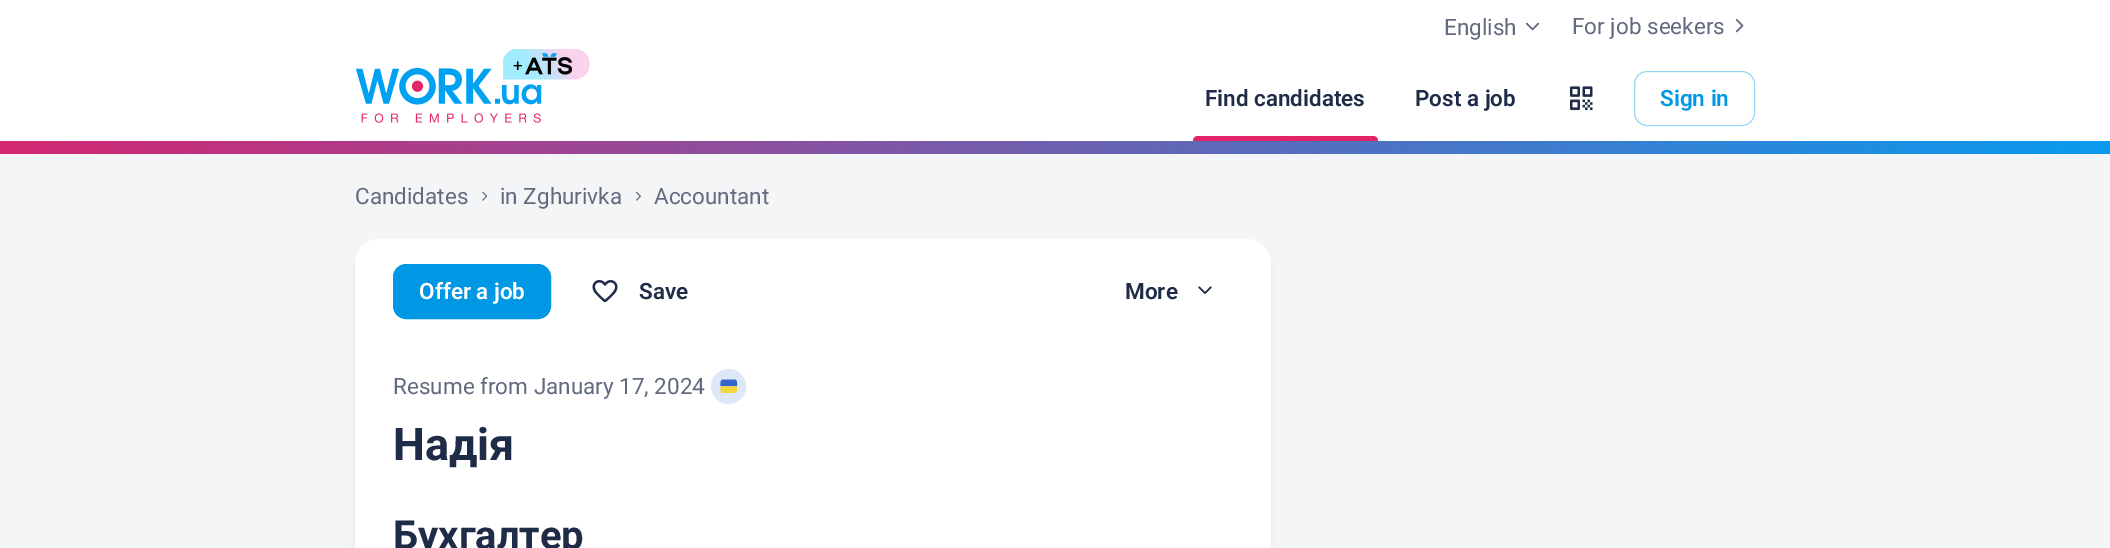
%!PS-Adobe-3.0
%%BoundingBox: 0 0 2110 548
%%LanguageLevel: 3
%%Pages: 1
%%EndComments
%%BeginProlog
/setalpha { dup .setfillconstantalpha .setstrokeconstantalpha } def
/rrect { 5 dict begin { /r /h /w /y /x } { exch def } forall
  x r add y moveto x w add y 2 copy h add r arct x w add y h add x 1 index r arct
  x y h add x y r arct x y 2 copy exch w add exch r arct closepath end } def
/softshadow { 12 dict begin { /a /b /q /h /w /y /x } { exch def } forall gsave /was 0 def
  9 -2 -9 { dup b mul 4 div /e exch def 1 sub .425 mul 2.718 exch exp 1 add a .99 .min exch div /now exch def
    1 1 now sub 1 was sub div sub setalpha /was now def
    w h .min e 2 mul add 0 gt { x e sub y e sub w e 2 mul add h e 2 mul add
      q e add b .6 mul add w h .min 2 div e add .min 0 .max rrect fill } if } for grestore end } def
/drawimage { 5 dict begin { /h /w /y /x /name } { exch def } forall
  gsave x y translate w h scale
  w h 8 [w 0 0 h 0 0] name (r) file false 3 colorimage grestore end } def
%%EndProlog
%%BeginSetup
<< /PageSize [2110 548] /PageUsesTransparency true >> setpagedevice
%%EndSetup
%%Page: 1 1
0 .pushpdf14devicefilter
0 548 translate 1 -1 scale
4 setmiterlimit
1 setgray
0 0 2110 548 rectfill
(images/1.raw) 1525 22 15 9 drawimage
(images/2.raw) 1735 19 9 14 drawimage
(images/3.raw) 355 68 187 37 drawimage
(images/4.raw) 503 49 87 31 drawimage
(images/5.raw) 361 113 180 10 drawimage
0.894 0.141 0.412 setrgbcolor
newpath 1198 136 moveto 1373 136 lineto 1376 136 1378 138 1378 141 curveto 1193 141 lineto 1193 138 1195 136 1198 136 curveto closepath fill
(images/6.raw) 1570 86 23 25 drawimage
0.6 0.839 0.961 setrgbcolor
1634.5 71.5 120 54 12.5 rrect stroke
0.957 0.961 0.965 setrgbcolor
0 154 2110 394 rectfill
gsave newpath 0 141 moveto 2110 141 lineto 2110 154 lineto 0 154 lineto closepath clip newpath
<< /ShadingType 2 /ColorSpace /DeviceRGB /Coords [-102 74 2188 220] /Extend [true true] /Function << /FunctionType 2 /Domain [0 1] /C0 [0.871 0.129 0.42] /C1 [0 0.624 0.957] /N 1 >> >> shfill grestore
(images/7.raw) 482 191 6 10 drawimage
(images/8.raw) 636 191 5 10 drawimage
0.122 0.173 0.278 setrgbcolor
355 245 916 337 25 3 0.05 softshadow
1 setgray
355 239 916 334 25 rrect fill
355 239 916 105 25 rrect fill
0 0.596 0.898 setrgbcolor
393.5 264.5 157 54 12.5 rrect gsave fill grestore
stroke
(images/9.raw) 592 280 26 23 drawimage
(images/10.raw) 1198 286 14 8 drawimage
0.871 0.906 0.969 setrgbcolor
newpath 728.5 386.5 17.5 0 360 arc closepath fill
(images/11.raw) 720 379 18 14 drawimage
/Roboto-Regular [22.5 0 0 -22.5 0 0] selectfont
0.384 0.42 0.494 setrgbcolor
1444 35 moveto (English) show
1572 34 moveto (For job seekers) show
/Roboto-SemiBold [22.5 0 0 -22.5 0 0] selectfont
0.122 0.173 0.278 setrgbcolor
1205 106 moveto (Find candidates) show
1415 106 moveto (Post a job) show
0 0.596 0.898 setrgbcolor
1660 106 moveto (Sign in) show
/Roboto-Regular [22.5 0 0 -22.5 0 0] selectfont
0.384 0.42 0.494 setrgbcolor
355 204 moveto (Candidates) show
500 204 moveto (in Zghurivka) show
654 204 moveto (Accountant) show
/Roboto-SemiBold [22.5 0 0 -22.5 0 0] selectfont
1 setgray
419 299 moveto (Offer a job) show
0.122 0.173 0.278 setrgbcolor
639 299 moveto (Save) show
1125 299 moveto (More) show
/Roboto-Regular [22.5 0 0 -22.5 0 0] selectfont
0.384 0.42 0.494 setrgbcolor
393 394 moveto (Resume from January 17, 2024) show
/Roboto-Bold [45 0 0 -45 0 0] selectfont
0.122 0.173 0.278 setrgbcolor
393 460 moveto (Надія) show
/Roboto-Bold [40 0 0 -40 0 0] selectfont
393 549 moveto (Бухгалтер) show
.poppdf14devicefilter showpage
%%EOF
